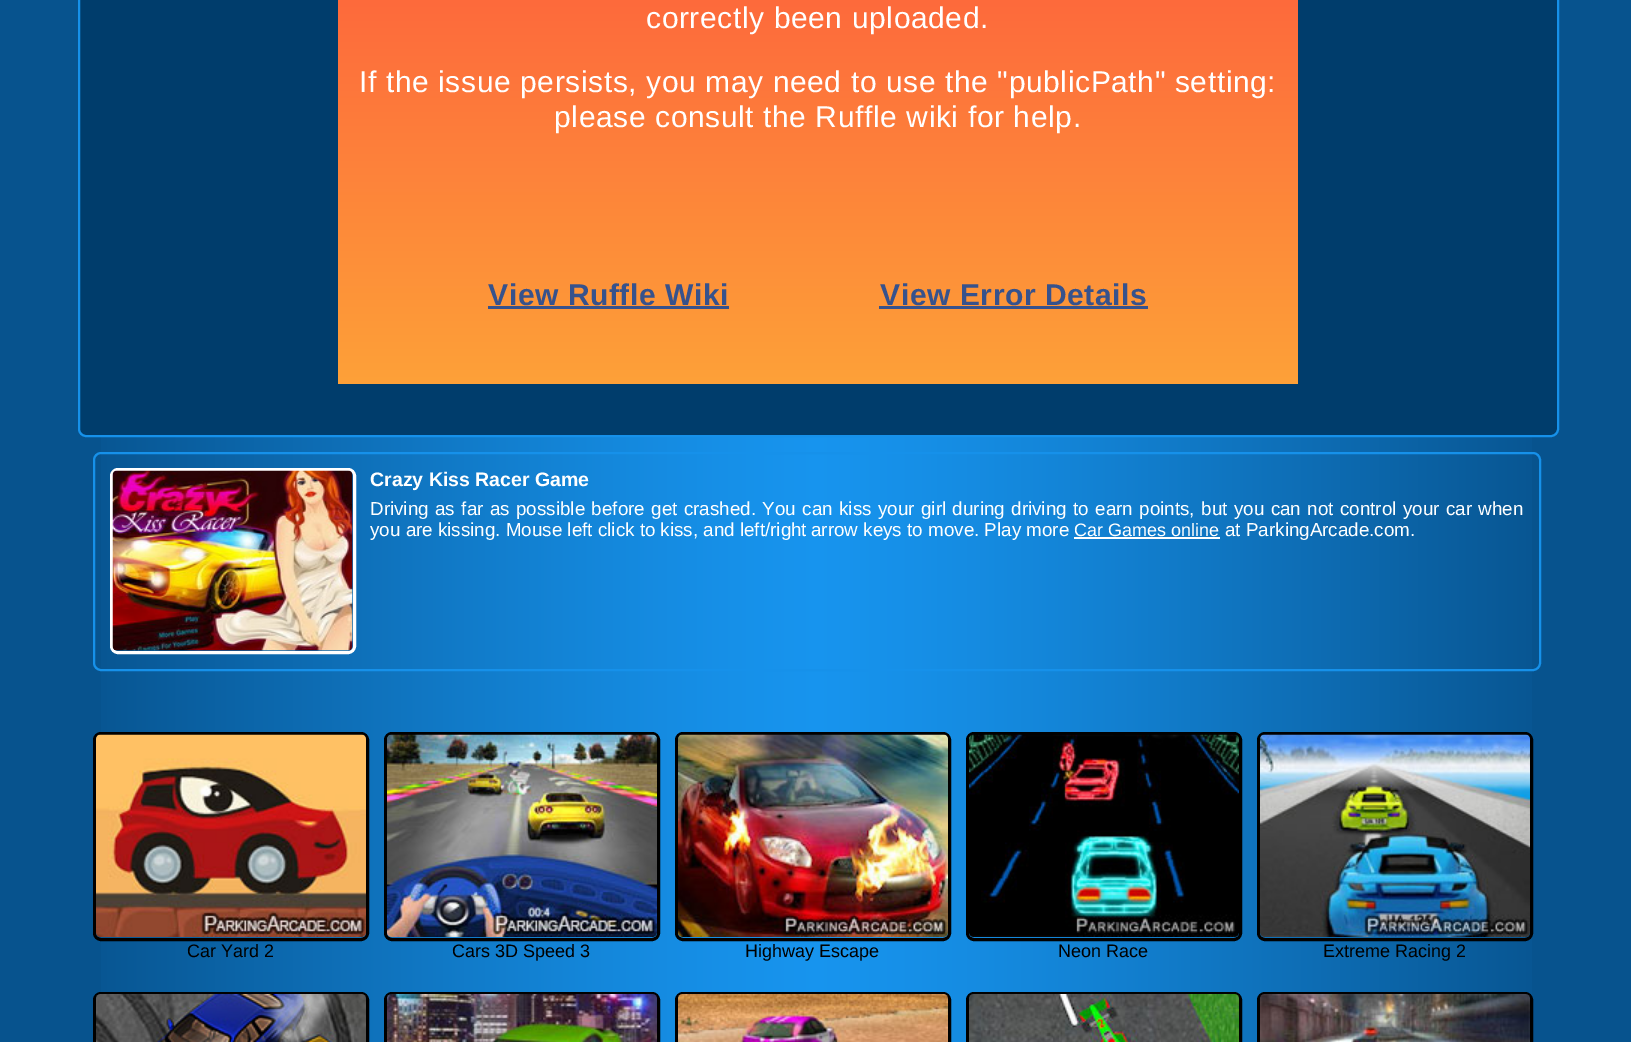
%!PS-Adobe-3.0
%%BoundingBox: 0 0 1631 1042
%%LanguageLevel: 3
%%Pages: 1
%%EndComments
%%BeginProlog
/rrect { 5 dict begin { /r /h /w /y /x } { exch def } forall
  x r add y moveto x w add y 2 copy h add r arct x w add y h add x 1 index r arct
  x y h add x y r arct x y 2 copy exch w add exch r arct closepath end } def
/drawimage { 5 dict begin { /h /w /y /x /name } { exch def } forall
  gsave x y translate w h scale
  w h 8 [w 0 0 h 0 0] name (r) file false 3 colorimage grestore end } def
%%EndProlog
%%BeginSetup
<< /PageSize [1631 1042] >> setpagedevice
%%EndSetup
%%Page: 1 1
0 1042 translate 1 -1 scale
4 setmiterlimit
0.027 0.325 0.557 setrgbcolor
0 0 1631 1042 rectfill
(images/1.raw) 101 437 1431 605 drawimage
0 0.239 0.424 setrgbcolor
79 -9 1479 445 7 rrect gsave fill grestore
0.086 0.569 0.918 setrgbcolor
2 setlinewidth
stroke
gsave newpath 338 0 moveto 1298 0 lineto 1298 384 lineto 338 384 lineto closepath clip newpath
<< /ShadingType 2 /ColorSpace /DeviceRGB /Coords [818 -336 818 384] /Extend [true true] /Function << /FunctionType 2 /Domain [0 1] /C0 [0.992 0.227 0.251] /C1 [0.992 0.631 0.22] /N 1 >> >> shfill grestore
0.216 0.322 0.549 setrgbcolor
488 306 241 3 rectfill
879 306 269 3 rectfill
0.086 0.569 0.918 setrgbcolor
94 453 1446 217 7 rrect stroke
1 setgray
3 setlinewidth
111.5 469.5 243 183 6.5 rrect stroke
(images/2.raw) 112 470 241 181 drawimage
1074 537 146 2 rectfill
0 setgray
94.5 733.5 273 206 6.5 rrect stroke
(images/3.raw) 96 734 270 203 drawimage
385.5 733.5 273 206 6.5 rrect stroke
(images/4.raw) 387 734 270 203 drawimage
676.5 733.5 273 206 6.5 rrect stroke
(images/5.raw) 678 734 270 203 drawimage
967.5 733.5 273 206 6.5 rrect stroke
(images/6.raw) 969 734 270 203 drawimage
1258.5 733.5 273 206 6.5 rrect stroke
(images/7.raw) 1260 734 270 203 drawimage
94.5 993.5 273 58 6.5 rrect stroke
(images/8.raw) 96 994 270 48 drawimage
385.5 993.5 273 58 6.5 rrect stroke
(images/9.raw) 387 994 270 48 drawimage
676.5 993.5 273 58 6.5 rrect stroke
(images/10.raw) 678 994 270 48 drawimage
967.5 993.5 273 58 6.5 rrect stroke
(images/11.raw) 969 994 270 48 drawimage
1258.5 993.5 273 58 6.5 rrect stroke
(images/12.raw) 1260 994 270 48 drawimage
/LiberationSans-Regular [30 0 0 -30 0 0] selectfont
1 setgray
646 28 moveto 0.6 0 (correctly been uploaded.) ashow
359 92 moveto 0.6 0 (If the issue persists, you may need to use the "publicPath" setting:) ashow
554 127 moveto 0.6 0 (please consult the Ruffle wiki for help.) ashow
/LiberationSans-Bold [30 0 0 -30 0 0] selectfont
0.216 0.322 0.549 setrgbcolor
488 305 moveto 0.6 0 (View Ruffle Wiki) ashow
880 305 moveto 0.6 0 (View Error Details) ashow
/LiberationSans-Bold [19.5 0 0 -19.5 0 0] selectfont
1 setgray
370 486 moveto (Crazy Kiss Racer Game) show
/LiberationSans-Regular [18.8 0 0 -18.8 0 0] selectfont
370 515 moveto 1.25 0 32 (Driving as far as possible before get crashed. You can kiss your girl during driving to earn points, but you can not control your car when) widthshow
370 536 moveto (you are kissing. Mouse left click to kiss, and left/right) show
811 536 moveto (arrow keys to move. Play more) show
/LiberationSans-Regular [18 0 0 -18 0 0] selectfont
1074 536 moveto (Car Games online) show
/LiberationSans-Regular [18.8 0 0 -18.8 0 0] selectfont
1225 536 moveto (at ParkingArcade.com.) show
/LiberationSans-Regular [18 0 0 -18 0 0] selectfont
0 setgray
187 957 moveto (Car Yard 2) show
452 957 moveto (Cars 3D Speed 3) show
745 957 moveto (Highway Escape) show
1058 957 moveto (Neon Race) show
1323 957 moveto (Extreme Racing 2) show
showpage
%%EOF
